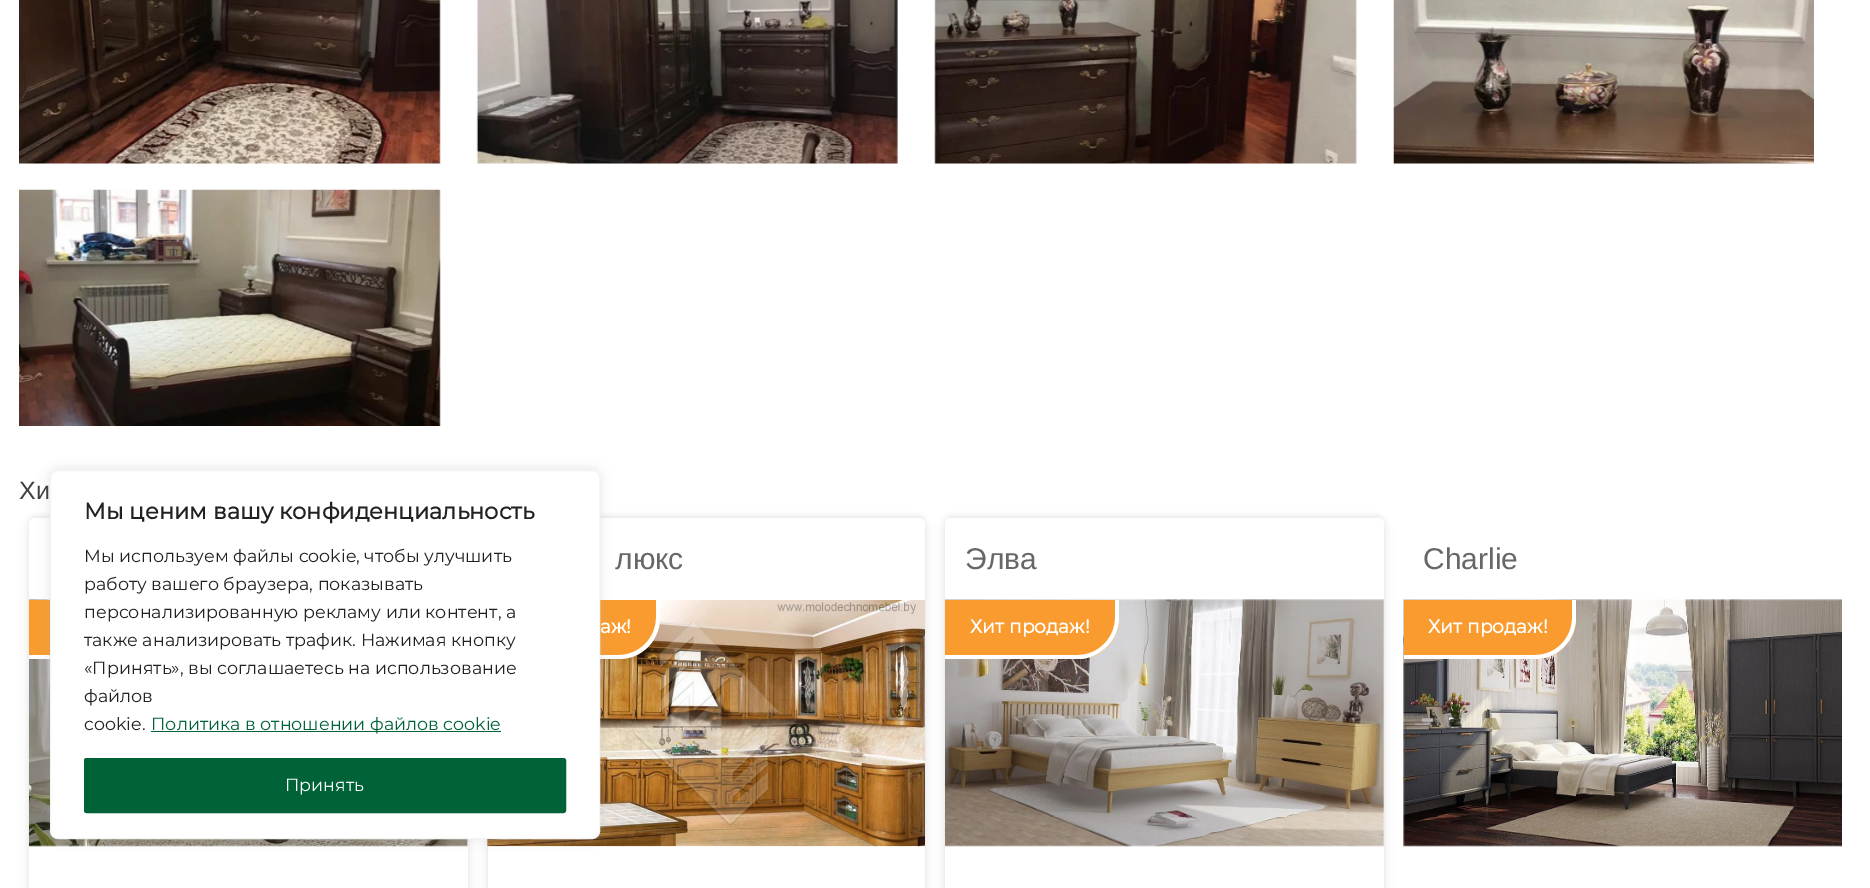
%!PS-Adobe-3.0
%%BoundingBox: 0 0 1870 888
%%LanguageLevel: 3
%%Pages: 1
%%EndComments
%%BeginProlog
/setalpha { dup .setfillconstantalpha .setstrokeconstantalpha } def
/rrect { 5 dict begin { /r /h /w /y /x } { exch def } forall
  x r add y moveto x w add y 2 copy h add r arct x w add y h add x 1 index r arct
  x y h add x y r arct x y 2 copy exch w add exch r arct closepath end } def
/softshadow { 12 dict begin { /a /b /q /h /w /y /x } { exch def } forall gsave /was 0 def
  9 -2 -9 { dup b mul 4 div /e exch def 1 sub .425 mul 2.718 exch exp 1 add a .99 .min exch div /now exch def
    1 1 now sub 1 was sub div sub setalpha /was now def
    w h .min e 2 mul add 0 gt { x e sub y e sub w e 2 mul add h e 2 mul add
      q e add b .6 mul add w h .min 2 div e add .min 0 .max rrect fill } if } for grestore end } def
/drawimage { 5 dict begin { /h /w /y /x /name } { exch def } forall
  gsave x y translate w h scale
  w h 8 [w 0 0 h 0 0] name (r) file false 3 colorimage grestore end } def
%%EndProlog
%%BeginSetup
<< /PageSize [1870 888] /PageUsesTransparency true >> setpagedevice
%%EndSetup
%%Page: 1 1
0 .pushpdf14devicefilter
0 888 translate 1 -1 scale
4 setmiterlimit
1 setgray
0 0 1870 888 rectfill
(images/1.raw) 19 0 422 164 drawimage
(images/2.raw) 476 0 422 164 drawimage
(images/3.raw) 934 0 423 164 drawimage
(images/4.raw) 1393 0 421 164 drawimage
(images/5.raw) 19 189 422 237 drawimage
0.137 0.122 0.125 setrgbcolor
29 523 439 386 6 5 0.1 softshadow
29 515 439 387 6 2.5 0.05 softshadow
1 setgray
29 518 439 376 6 rrect fill
(images/6.raw) 29 599 439 248 drawimage
0.976 0.608 0.18 setrgbcolor
29 600 21 55 rectfill
1 setgray
newpath 29 600 moveto 202 600 lineto 202 618 lineto 202 640 184 659 161 659 curveto 29 659 lineto closepath 29 600 moveto 199 600 lineto 199 618 lineto 199 638 182 655 161 655 curveto 29 655 lineto closepath eofill
0.137 0.122 0.125 setrgbcolor
488 523 437 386 6 5 0.1 softshadow
488 515 437 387 6 2.5 0.05 softshadow
1 setgray
488 518 437 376 6 rrect fill
(images/7.raw) 487 600 438 247 drawimage
0.976 0.608 0.18 setrgbcolor
newpath 488 600 moveto 660 600 lineto 660 618 lineto 660 640.5 641.5 659 619 659 curveto 488 659 lineto closepath fill
1 setgray
newpath 488 600 moveto 660 600 lineto 660 618 lineto 660 640 642 659 619 659 curveto 488 659 lineto closepath 488 600 moveto 656 600 lineto 656 618 lineto 656 638 639 655 619 655 curveto 488 655 lineto closepath eofill
0.137 0.122 0.125 setrgbcolor
945 523 439 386 6 5 0.1 softshadow
945 515 439 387 6 2.5 0.05 softshadow
1 setgray
945 518 439 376 6 rrect fill
(images/8.raw) 945 599 439 248 drawimage
0.976 0.608 0.18 setrgbcolor
newpath 945 600 moveto 1119 600 lineto 1119 618 lineto 1119 640.5 1100.5 659 1078 659 curveto 945 659 lineto closepath fill
1 setgray
newpath 945 600 moveto 1119 600 lineto 1119 618 lineto 1119 640 1100 659 1078 659 curveto 945 659 lineto closepath 945 600 moveto 1115 600 lineto 1115 618 lineto 1115 638 1098 655 1078 655 curveto 945 655 lineto closepath eofill
(images/9.raw) 1403 599 439 248 drawimage
0.976 0.608 0.18 setrgbcolor
newpath 1404 600 moveto 1576 600 lineto 1576 618 lineto 1576 640.5 1557.5 659 1535 659 curveto 1404 659 lineto closepath fill
1 setgray
newpath 1404 600 moveto 1576 600 lineto 1576 618 lineto 1576 640 1558 659 1535 659 curveto 1404 659 lineto closepath 1404 600 moveto 1572 600 lineto 1572 618 lineto 1572 638 1556 655 1535 655 curveto 1404 655 lineto closepath eofill
0.675 0.671 0.671 setrgbcolor
50 469 550 369 8 6 0.3 softshadow
1 setgray
50.5 470.5 549 368 7.5 rrect gsave fill grestore
0.957 setgray
stroke
0 0.388 0.22 setrgbcolor
151 731 350 1 rectfill
85.5 759.5 479 52 1 rrect gsave fill grestore
3 setlinewidth
stroke
/LiberationSans-Regular [25 0 0 -25 0 0] selectfont
0.251 setgray
19 499 moveto (Хи) show
/LiberationSans-Regular [30 0 0 -30 0 0] selectfont
0.404 setgray
615 569 moveto (люкс) show
/Montserrat-Bold [18.75 0 0 -18.75 0 0] selectfont
1 setgray
600 633 moveto (аж!) show
/LiberationSans-Regular [30 0 0 -30 0 0] selectfont
0.404 setgray
965 569 moveto (Элва) show
/Montserrat-Bold [18.75 0 0 -18.75 0 0] selectfont
1 setgray
970 633 moveto (Хит продаж!) show
/LiberationSans-Regular [30 0 0 -30 0 0] selectfont
0.404 setgray
1423 569 moveto (Charlie) show
/Montserrat-Bold [18.75 0 0 -18.75 0 0] selectfont
1 setgray
1428 633 moveto (Хит продаж!) show
/Montserrat-Bold [22.5 0 0 -22.5 0 0] selectfont
0.129 setgray
84 519 moveto (Мы ценим вашу конфиденциальность) show
/Montserrat-Regular [17.5 0 0 -17.5 0 0] selectfont
84 562 moveto (Мы используем файлы cookie, чтобы улучшить) show
84 590 moveto (работу вашего браузера, показывать) show
84 618 moveto (персонализированную рекламу или контент, а) show
84 646 moveto (также анализировать трафик. Нажимая кнопку) show
84 674 moveto («Принять», вы соглашаетесь на использование) show
84 702 moveto (файлов) show
84 730 moveto (cookie.) show
0 0.388 0.22 setrgbcolor
151 730 moveto (Политика в отношении файлов cookie) show
1 setgray
285 791 moveto (Принять) show
.poppdf14devicefilter showpage
%%EOF
